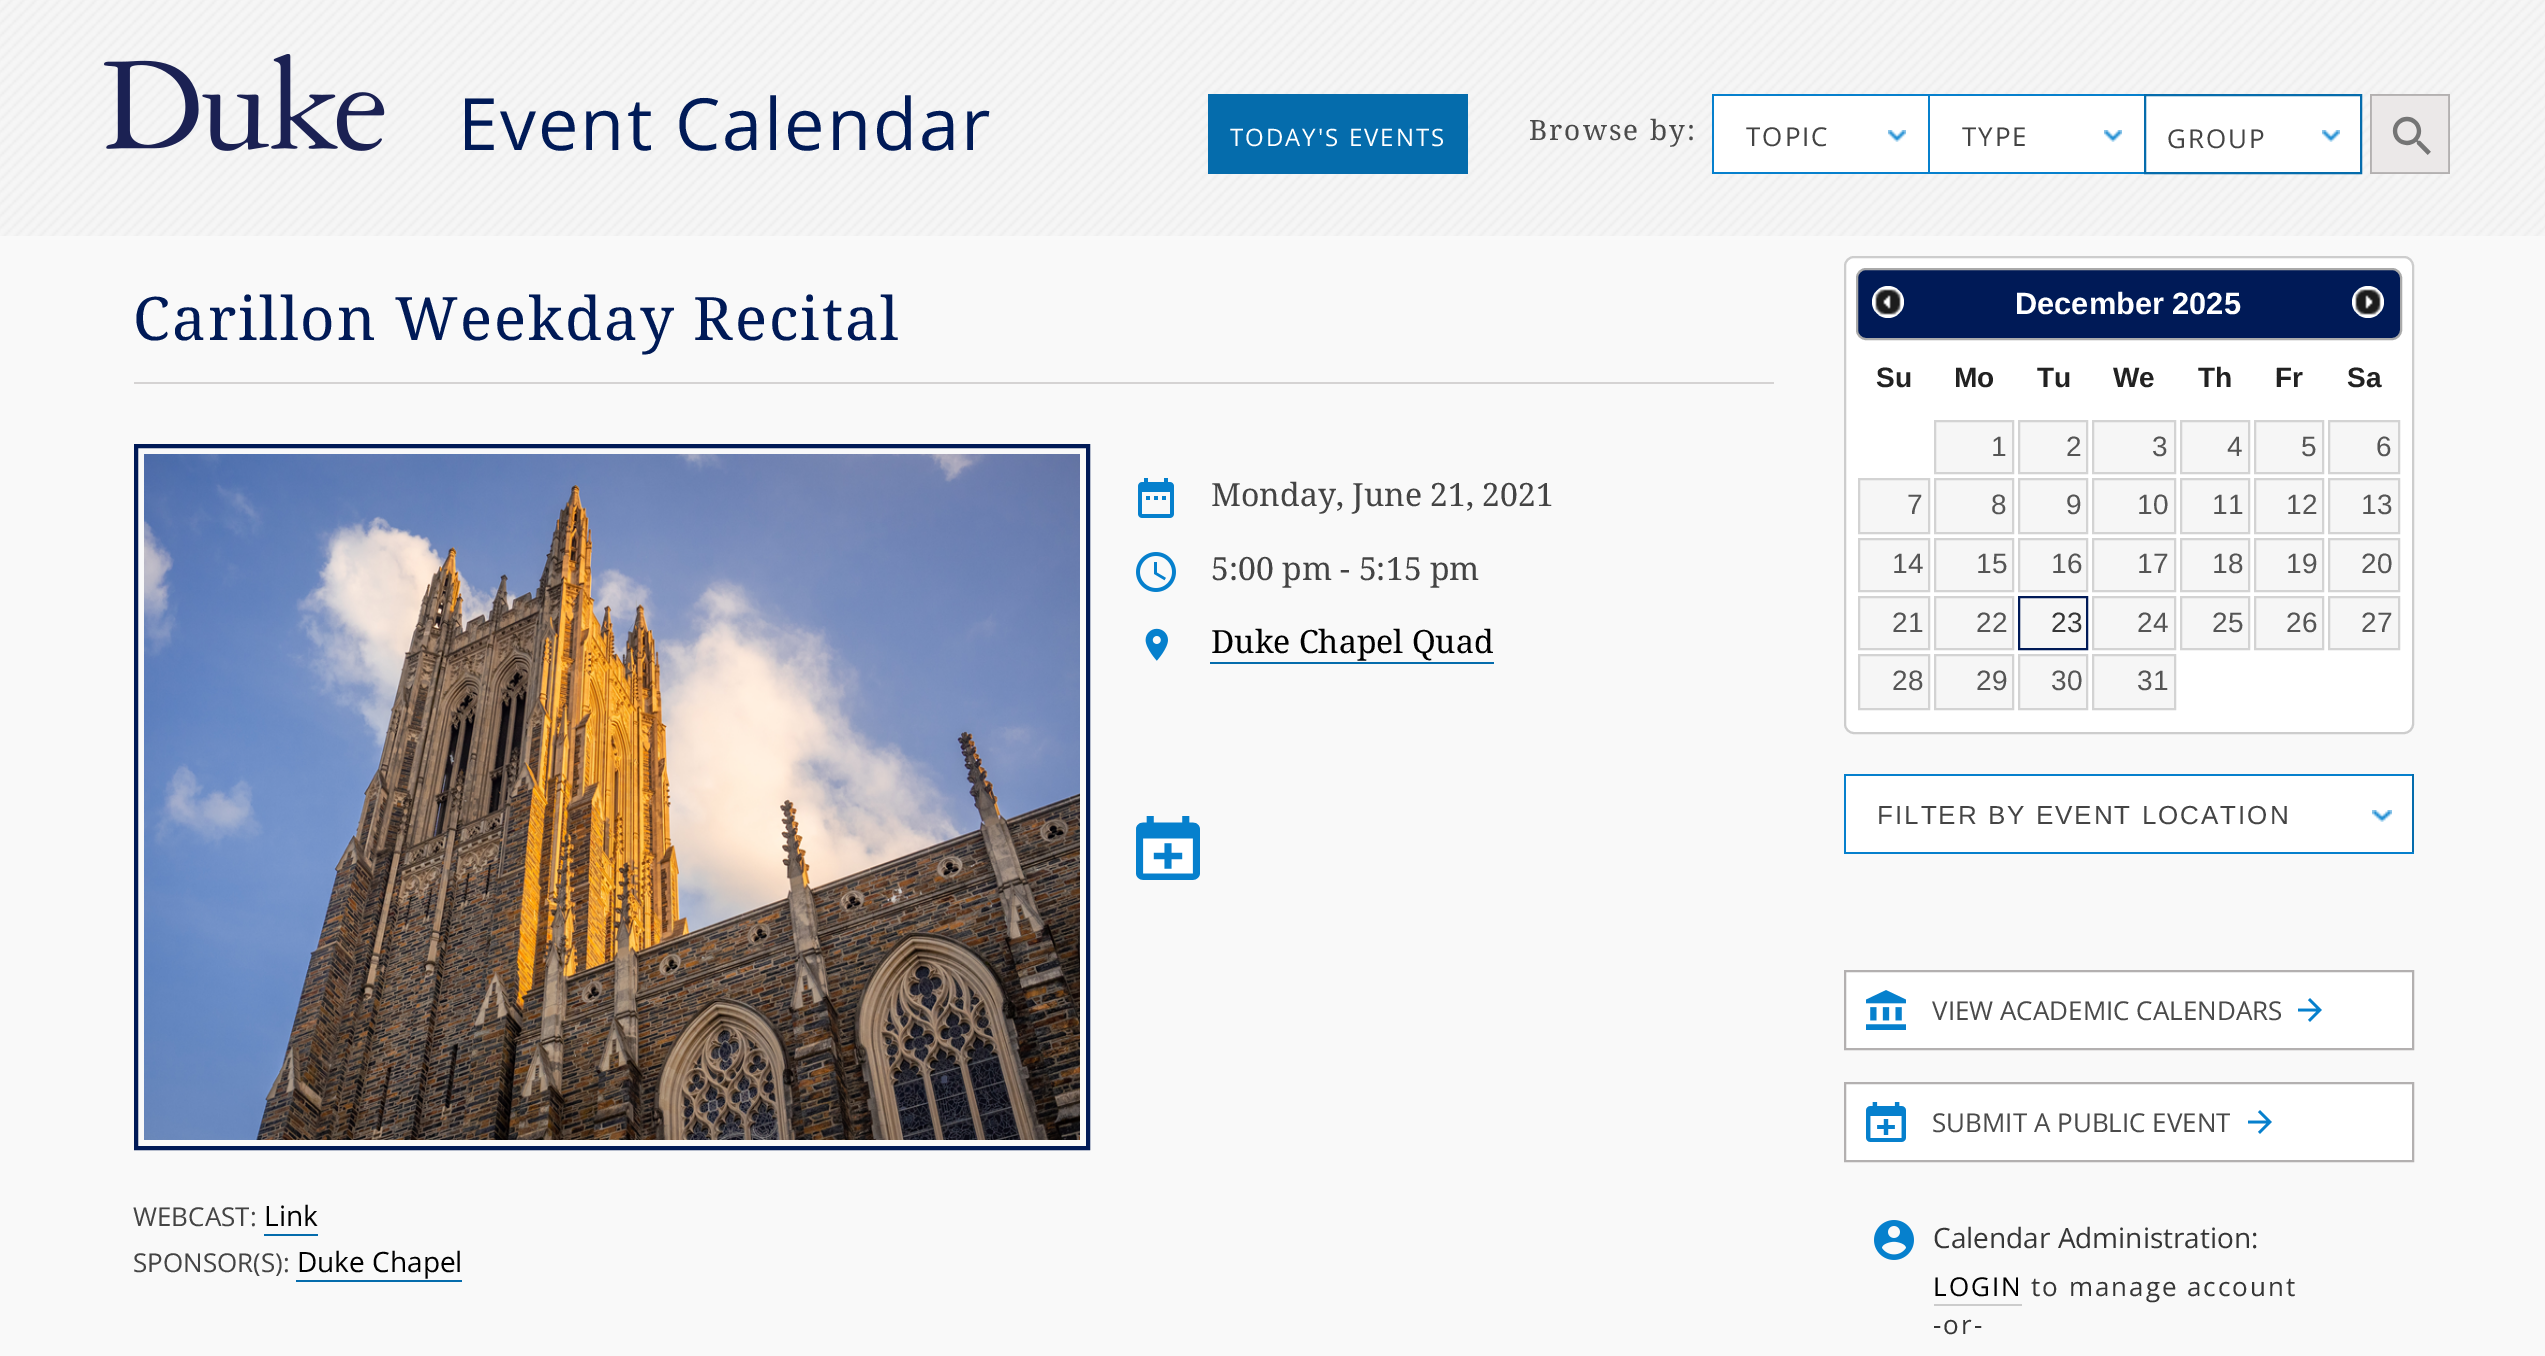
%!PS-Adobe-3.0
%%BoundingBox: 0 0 2545 1356
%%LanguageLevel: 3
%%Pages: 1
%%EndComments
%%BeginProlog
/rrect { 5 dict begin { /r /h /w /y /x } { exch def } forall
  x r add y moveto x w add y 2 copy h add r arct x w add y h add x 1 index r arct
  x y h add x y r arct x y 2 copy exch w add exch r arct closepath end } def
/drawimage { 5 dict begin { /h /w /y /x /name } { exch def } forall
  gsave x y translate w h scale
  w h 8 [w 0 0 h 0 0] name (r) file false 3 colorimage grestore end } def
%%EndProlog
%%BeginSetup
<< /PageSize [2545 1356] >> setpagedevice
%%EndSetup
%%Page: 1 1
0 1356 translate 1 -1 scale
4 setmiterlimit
1 setgray
0 0 2545 1356 rectfill
(images/1.raw) 0 0 2545 236 drawimage
(images/2.raw) 104 54 281 97 drawimage
0.02 0.424 0.675 setrgbcolor
1208 94 260 80 rectfill
1 setgray
1714 96 214 76 rectfill
0.024 0.502 0.804 setrgbcolor
1712 94 432 2 rectfill
1712 172 432 2 rectfill
1712 94 2 80 rectfill
(images/3.raw) 1888 130 18 12 drawimage
1 setgray
1930 96 214 76 rectfill
0.024 0.502 0.804 setrgbcolor
1928 94 2 80 rectfill
(images/3.raw) 2104 130 18 12 drawimage
1 setgray
newpath 2145 95 moveto 2361 95 lineto 2361 173 lineto 2145 173 lineto closepath gsave fill grestore
0.02 0.424 0.675 setrgbcolor
2 setlinewidth
stroke
(images/3.raw) 2322 130 18 12 drawimage
(images/4.raw) 2370 94 80 80 drawimage
0.976 setgray
0 236 2545 1120 rectfill
0.835 0.827 0.827 setrgbcolor
134 382 1640 2 rectfill
0 0.102 0.341 setrgbcolor
4 setlinewidth
136 446 952 702 rectstroke
(images/5.raw) 144 454 936 686 drawimage
(images/6.raw) 1138 478 36 40 drawimage
(images/7.raw) 1136 552 40 40 drawimage
(images/8.raw) 1145 628 23 33 drawimage
0.02 0.424 0.675 setrgbcolor
1210 662 284 2 rectfill
(images/9.raw) 1136 816 64 64 drawimage
264 1234 54 2 rectfill
296 1280 166 2 rectfill
1 setgray
1845 257 568 476 9 rrect gsave fill grestore
0.804 setgray
2 setlinewidth
stroke
0 0.102 0.341 setrgbcolor
1857 269 544 70 9 rrect gsave fill grestore
0.667 setgray
stroke
1 setgray
newpath 1888 302 16 0 360 arc closepath fill
(images/10.raw) 1875 289 26 26 drawimage
newpath 2368 302 16 0 360 arc closepath fill
(images/11.raw) 2355 289 26 26 drawimage
0.965 setgray
newpath 1935 421 moveto 2013 421 lineto 2013 473 lineto 1935 473 lineto closepath gsave fill grestore
0.827 setgray
stroke
0.965 setgray
newpath 2019 421 moveto 2087 421 lineto 2087 473 lineto 2019 473 lineto closepath gsave fill grestore
0.827 setgray
stroke
0.965 setgray
newpath 2093 421 moveto 2175 421 lineto 2175 473 lineto 2093 473 lineto closepath gsave fill grestore
0.827 setgray
stroke
0.965 setgray
newpath 2181 421 moveto 2249 421 lineto 2249 473 lineto 2181 473 lineto closepath gsave fill grestore
0.827 setgray
stroke
0.965 setgray
newpath 2255 421 moveto 2323 421 lineto 2323 473 lineto 2255 473 lineto closepath gsave fill grestore
0.827 setgray
stroke
0.965 setgray
newpath 2329 421 moveto 2399 421 lineto 2399 473 lineto 2329 473 lineto closepath gsave fill grestore
0.827 setgray
stroke
0.965 setgray
newpath 1859 479 moveto 1929 479 lineto 1929 533 lineto 1859 533 lineto closepath gsave fill grestore
0.827 setgray
stroke
0.965 setgray
newpath 1935 479 moveto 2013 479 lineto 2013 533 lineto 1935 533 lineto closepath gsave fill grestore
0.827 setgray
stroke
0.965 setgray
newpath 2019 479 moveto 2087 479 lineto 2087 533 lineto 2019 533 lineto closepath gsave fill grestore
0.827 setgray
stroke
0.965 setgray
newpath 2093 479 moveto 2175 479 lineto 2175 533 lineto 2093 533 lineto closepath gsave fill grestore
0.827 setgray
stroke
0.965 setgray
newpath 2181 479 moveto 2249 479 lineto 2249 533 lineto 2181 533 lineto closepath gsave fill grestore
0.827 setgray
stroke
0.965 setgray
newpath 2255 479 moveto 2323 479 lineto 2323 533 lineto 2255 533 lineto closepath gsave fill grestore
0.827 setgray
stroke
0.965 setgray
newpath 2329 479 moveto 2399 479 lineto 2399 533 lineto 2329 533 lineto closepath gsave fill grestore
0.827 setgray
stroke
0.965 setgray
newpath 1859 539 moveto 1929 539 lineto 1929 591 lineto 1859 591 lineto closepath gsave fill grestore
0.827 setgray
stroke
0.965 setgray
newpath 1935 539 moveto 2013 539 lineto 2013 591 lineto 1935 591 lineto closepath gsave fill grestore
0.827 setgray
stroke
0.965 setgray
newpath 2019 539 moveto 2087 539 lineto 2087 591 lineto 2019 591 lineto closepath gsave fill grestore
0.827 setgray
stroke
0.965 setgray
newpath 2093 539 moveto 2175 539 lineto 2175 591 lineto 2093 591 lineto closepath gsave fill grestore
0.827 setgray
stroke
0.965 setgray
newpath 2181 539 moveto 2249 539 lineto 2249 591 lineto 2181 591 lineto closepath gsave fill grestore
0.827 setgray
stroke
0.965 setgray
newpath 2255 539 moveto 2323 539 lineto 2323 591 lineto 2255 591 lineto closepath gsave fill grestore
0.827 setgray
stroke
0.965 setgray
newpath 2329 539 moveto 2399 539 lineto 2399 591 lineto 2329 591 lineto closepath gsave fill grestore
0.827 setgray
stroke
0.965 setgray
newpath 1859 597 moveto 1929 597 lineto 1929 649 lineto 1859 649 lineto closepath gsave fill grestore
0.827 setgray
stroke
0.965 setgray
newpath 1935 597 moveto 2013 597 lineto 2013 649 lineto 1935 649 lineto closepath gsave fill grestore
0.827 setgray
stroke
0.965 setgray
newpath 2019 597 moveto 2087 597 lineto 2087 649 lineto 2019 649 lineto closepath gsave fill grestore
0 0.102 0.341 setrgbcolor
stroke
0.965 setgray
newpath 2093 597 moveto 2175 597 lineto 2175 649 lineto 2093 649 lineto closepath gsave fill grestore
0.827 setgray
stroke
0.965 setgray
newpath 2181 597 moveto 2249 597 lineto 2249 649 lineto 2181 649 lineto closepath gsave fill grestore
0.827 setgray
stroke
0.965 setgray
newpath 2255 597 moveto 2323 597 lineto 2323 649 lineto 2255 649 lineto closepath gsave fill grestore
0.827 setgray
stroke
0.965 setgray
newpath 2329 597 moveto 2399 597 lineto 2399 649 lineto 2329 649 lineto closepath gsave fill grestore
0.827 setgray
stroke
0.965 setgray
newpath 1859 655 moveto 1929 655 lineto 1929 709 lineto 1859 709 lineto closepath gsave fill grestore
0.827 setgray
stroke
0.965 setgray
newpath 1935 655 moveto 2013 655 lineto 2013 709 lineto 1935 709 lineto closepath gsave fill grestore
0.827 setgray
stroke
0.965 setgray
newpath 2019 655 moveto 2087 655 lineto 2087 709 lineto 2019 709 lineto closepath gsave fill grestore
0.827 setgray
stroke
0.965 setgray
newpath 2093 655 moveto 2175 655 lineto 2175 709 lineto 2093 709 lineto closepath gsave fill grestore
0.827 setgray
stroke
1 setgray
1846 776 566 76 rectfill
0.024 0.502 0.804 setrgbcolor
1844 774 570 2 rectfill
0.02 0.424 0.675 setrgbcolor
2412 774 2 80 rectfill
0.024 0.502 0.804 setrgbcolor
1844 852 570 2 rectfill
1844 774 2 80 rectfill
(images/12.raw) 2372 810 20 12 drawimage
1 setgray
newpath 1845 971 moveto 2413 971 lineto 2413 1049 lineto 1845 1049 lineto closepath gsave fill grestore
0.702 0.69 0.69 setrgbcolor
stroke
(images/13.raw) 1866 990 40 40 drawimage
(images/14.raw) 2298 998 24 24 drawimage
1 setgray
newpath 1845 1083 moveto 2413 1083 lineto 2413 1161 lineto 1845 1161 lineto closepath gsave fill grestore
0.702 0.69 0.69 setrgbcolor
stroke
(images/15.raw) 1866 1102 40 40 drawimage
(images/14.raw) 2248 1110 24 24 drawimage
(images/16.raw) 1874 1220 40 40 drawimage
0.8 setgray
1934 1304 88 2 rectfill
/OpenSans-Regular [72 0 0 -72 0 0] selectfont
0 0.102 0.341 setrgbcolor
458 150 moveto 2 0 (Event Calendar) ashow
/OpenSans-Regular [24 0 0 -24 0 0] selectfont
1 setgray
1230 146 moveto 2 0 (TODAY'S EVENTS) ashow
/DroidSerif-Regular [28 0 0 -28 0 0] selectfont
0.29 setgray
1529 140 moveto 2 0 (Browse by:) ashow
/OpenSans-Regular [26 0 0 -26 0 0] selectfont
0.267 setgray
1746 146 moveto 2 0 (TOPIC) ashow
1962 146 moveto 2 0 (TYPE) ashow
2167 148 moveto 2 0 (GROUP) ashow
/DroidSerif-Regular [60 0 0 -60 0 0] selectfont
0 0.102 0.341 setrgbcolor
133 340 moveto 2 0 (Carillon Weekday Recital) ashow
/DroidSerif-Regular [32 0 0 -32 0 0] selectfont
0.267 setgray
1211 506 moveto (Monday, June 21, 2021) show
1211 580 moveto (5:00 pm - 5:15 pm) show
0 setgray
1211 653 moveto (Duke Chapel Quad) show
/OpenSans-Regular [26 0 0 -26 0 0] selectfont
0.267 setgray
133 1226 moveto (WEBCAST:) show
/OpenSans-Regular [28 0 0 -28 0 0] selectfont
0 setgray
264 1226 moveto (Link) show
/OpenSans-Regular [26 0 0 -26 0 0] selectfont
0.267 setgray
133 1272 moveto (SPONSOR\(S\):) show
/OpenSans-Regular [28 0 0 -28 0 0] selectfont
0 setgray
297 1272 moveto (Duke Chapel) show
/LiberationSans-Bold [30.75 0 0 -30.75 0 0] selectfont
1 setgray
2015 314 moveto (December 2025) show
/LiberationSans-Bold [28 0 0 -28 0 0] selectfont
0.133 setgray
1876 387 moveto (Su) show
1954 387 moveto (Mo) show
2037 387 moveto (Tu) show
2113 387 moveto (We) show
2198 387 moveto (Th) show
2275 387 moveto (Fr) show
2347 387 moveto (Sa) show
/LiberationSans-Regular [28 0 0 -28 0 0] selectfont
0.333 setgray
1991 456 moveto (1) show
2066 456 moveto (2) show
2152 456 moveto (3) show
2227 456 moveto (4) show
2301 456 moveto (5) show
2376 456 moveto (6) show
1907 514 moveto (7) show
1991 514 moveto (8) show
2066 514 moveto (9) show
2137 514 moveto (10) show
2212 514 moveto (11) show
2286 514 moveto (12) show
2361 514 moveto (13) show
1892 573 moveto (14) show
1976 573 moveto (15) show
2051 573 moveto (16) show
2137 573 moveto (17) show
2212 573 moveto (18) show
2286 573 moveto (19) show
2361 573 moveto (20) show
1892 632 moveto (21) show
1976 632 moveto (22) show
0.212 setgray
2051 632 moveto (23) show
0.333 setgray
2137 632 moveto (24) show
2212 632 moveto (25) show
2286 632 moveto (26) show
2361 632 moveto (27) show
1892 690 moveto (28) show
1976 690 moveto (29) show
2051 690 moveto (30) show
2137 690 moveto (31) show
/LiberationSans-Regular [26 0 0 -26 0 0] selectfont
0.267 setgray
1877 824 moveto 2 0 (FILTER BY EVENT LOCATION) ashow
/OpenSans-Regular [26 0 0 -26 0 0] selectfont
0.29 setgray
1932 1020 moveto (VIEW ACADEMIC CALENDARS) show
1932 1132 moveto (SUBMIT A PUBLIC EVENT) show
/OpenSans-Regular [28 0 0 -28 0 0] selectfont
0.212 setgray
1933 1248 moveto (Calendar Administration:) show
/OpenSans-Regular [26 0 0 -26 0 0] selectfont
0 setgray
1933 1296 moveto 2 0 (LOGIN) ashow
0.212 setgray
2031 1296 moveto 2 0 (to manage account) ashow
1933 1334 moveto 2 0 (-or-) ashow
showpage
%%EOF
